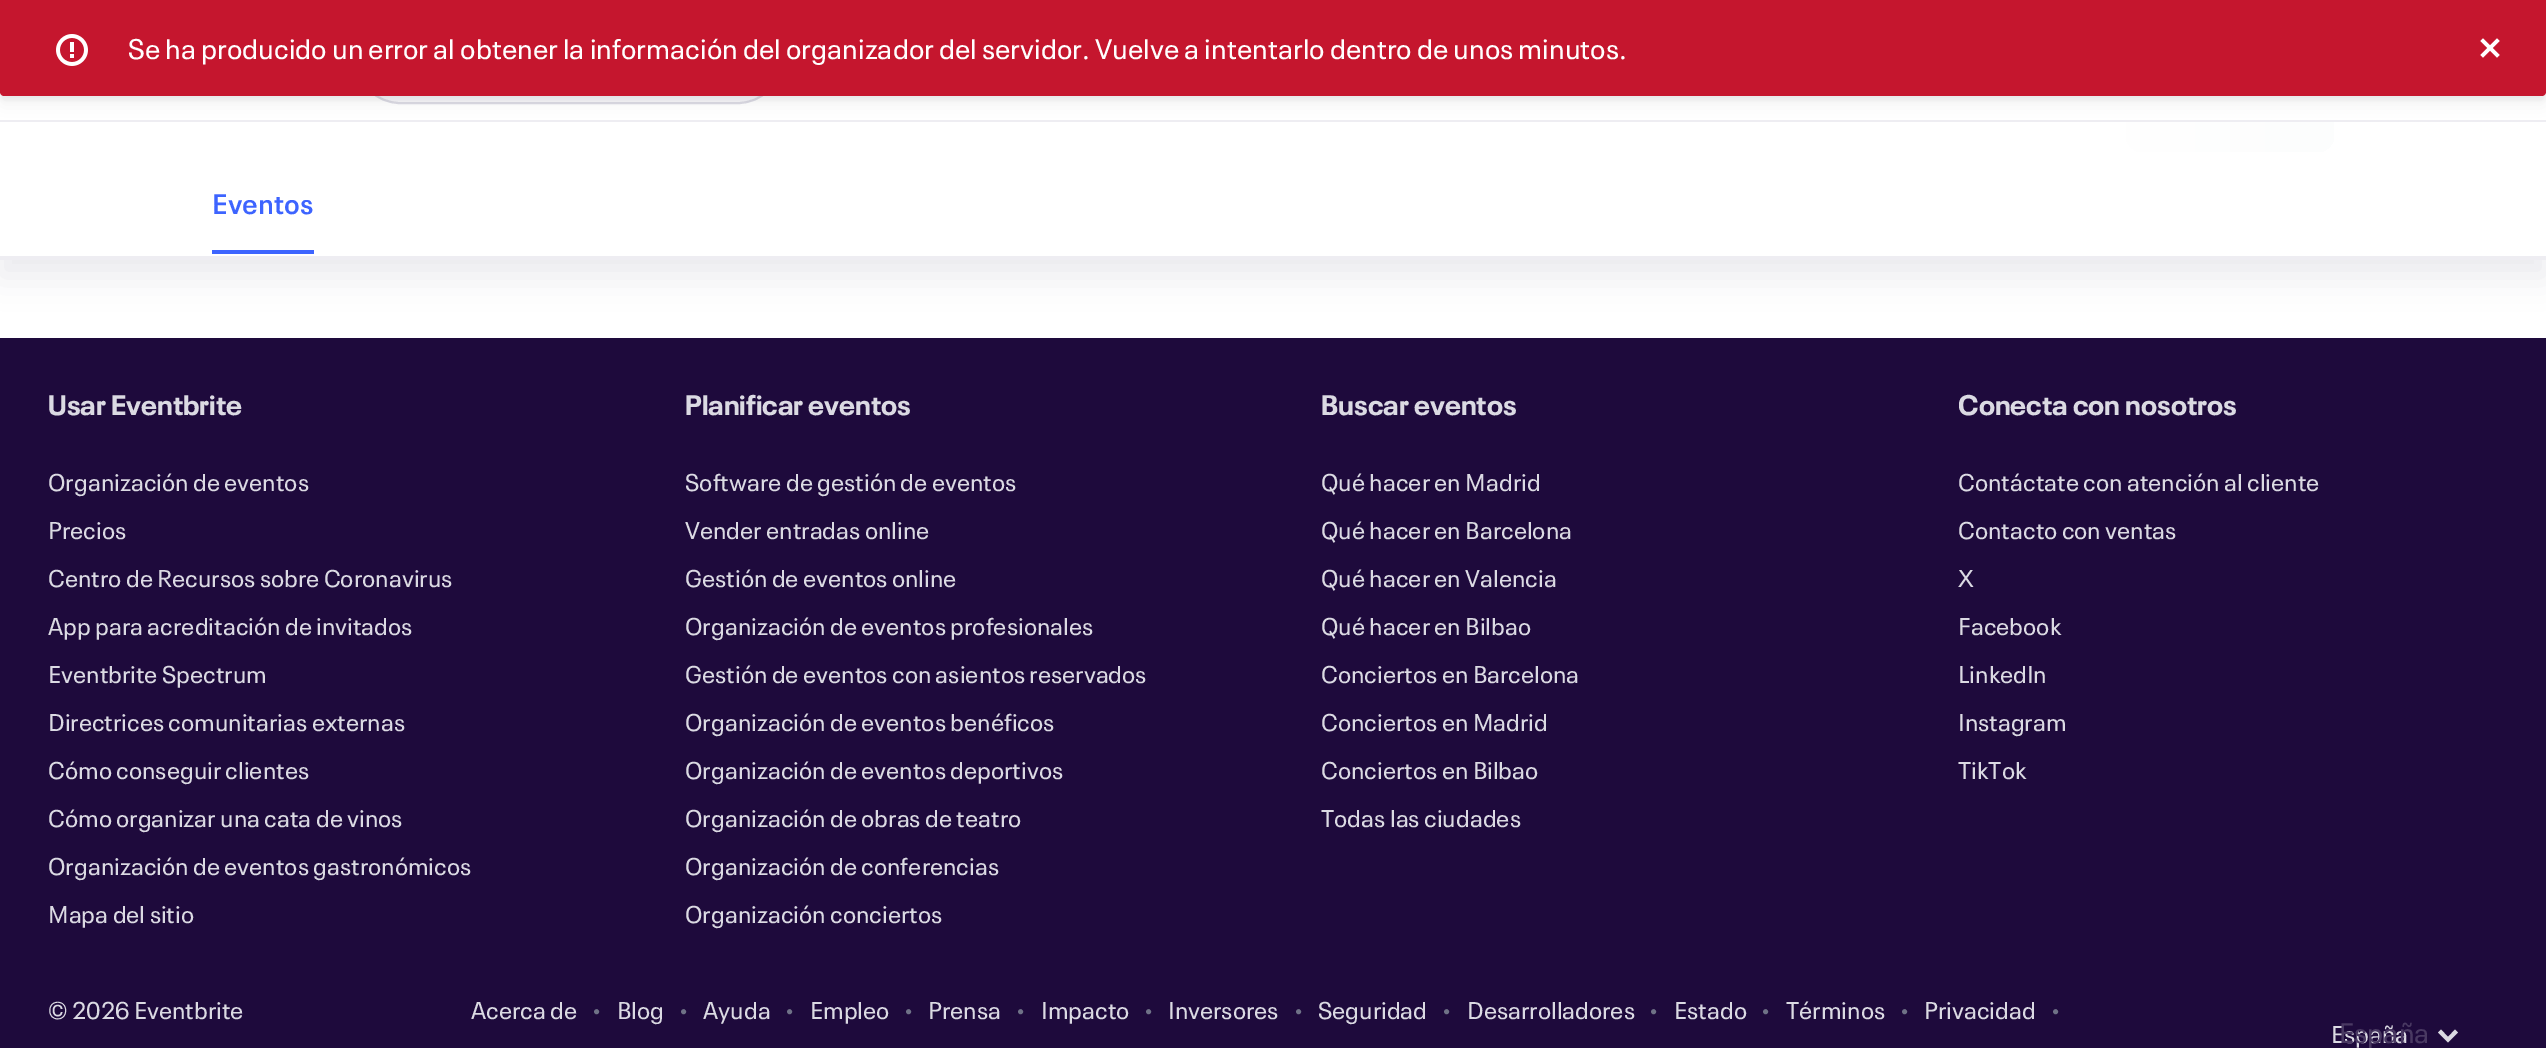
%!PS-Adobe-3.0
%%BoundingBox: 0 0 2546 1048
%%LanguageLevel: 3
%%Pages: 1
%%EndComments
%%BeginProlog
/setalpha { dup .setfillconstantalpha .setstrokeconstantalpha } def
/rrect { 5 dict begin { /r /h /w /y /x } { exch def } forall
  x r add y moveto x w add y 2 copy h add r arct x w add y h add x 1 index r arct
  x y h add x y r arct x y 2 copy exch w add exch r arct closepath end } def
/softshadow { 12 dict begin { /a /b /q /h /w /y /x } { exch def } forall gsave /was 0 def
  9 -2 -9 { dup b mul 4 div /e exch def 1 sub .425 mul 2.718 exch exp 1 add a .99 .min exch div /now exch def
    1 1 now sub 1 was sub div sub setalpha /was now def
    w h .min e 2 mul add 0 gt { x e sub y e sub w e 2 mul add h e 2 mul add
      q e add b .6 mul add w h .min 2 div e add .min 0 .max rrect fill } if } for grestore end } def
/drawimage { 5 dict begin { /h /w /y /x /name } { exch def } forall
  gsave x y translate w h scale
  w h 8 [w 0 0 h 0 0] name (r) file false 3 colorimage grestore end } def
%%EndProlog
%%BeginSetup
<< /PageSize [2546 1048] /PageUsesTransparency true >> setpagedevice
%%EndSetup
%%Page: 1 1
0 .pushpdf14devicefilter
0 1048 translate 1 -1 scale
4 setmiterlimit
1 setgray
0 0 2546 1048 rectfill
0.18 0.216 0.302 setrgbcolor
0 16 2546 260 0 16 0.1 softshadow
1 setgray
0 122 2546 134 rectfill
gsave 2126 64 208 88 16 rrect clip newpath
<< /ShadingType 2 /ColorSpace /DeviceRGB /Coords [2126 108 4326 108] /Extend [true true] /Function << /FunctionType 3 /Domain [0 1] /Functions [<< /FunctionType 2 /Domain [0 1] /C0 [1 1 1] /C1 [0.965 0.969 0.976] /N 1 >> << /FunctionType 2 /Domain [0 1] /C0 [0.965 0.969 0.976] /C1 [0.859 0.855 0.89] /N 1 >> << /FunctionType 2 /Domain [0 1] /C0 [0.859 0.855 0.89] /C1 [0.965 0.969 0.976] /N 1 >> << /FunctionType 2 /Domain [0 1] /C0 [0.965 0.969 0.976] /C1 [1 1 1] /N 1 >>] /Bounds [0.33 0.5 0.67] /Encode [0 1 0 1 0 1 0 1] >> >> shfill grestore
0 92 2546 28 rectfill
0.973 0.969 0.98 setrgbcolor
357 17 424 86 43 rrect gsave fill grestore
0.859 0.855 0.89 setrgbcolor
2 setlinewidth
stroke
0.157 0.173 0.208 setrgbcolor
0 4 2546 96 4 2 0.06 softshadow
0.933 0.929 0.949 setrgbcolor
0 120 2546 2 rectfill
0.157 0.173 0.208 setrgbcolor
0 8 2546 96 4 8 0.06 softshadow
0.773 0.086 0.18 setrgbcolor
newpath 0 0 moveto 2546 0 lineto 2546 92 lineto 2546 94 2544 96 2542 96 curveto 4 96 lineto 2 96 0 94 0 92 curveto closepath fill
(images/1.raw) 56 34 32 32 drawimage
(images/2.raw) 2480 38 20 20 drawimage
0.933 0.929 0.949 setrgbcolor
0 256 2546 4 rectfill
0.239 0.392 1 setrgbcolor
212 250 102 4 rectfill
0.118 0.039 0.235 setrgbcolor
0 338 2546 710 rectfill
0.859 0.855 0.89 setrgbcolor
newpath 2438 1032.5 moveto 2448 1042.5 lineto 2458 1032.5 lineto 2455 1029.5 lineto 2448 1037 lineto 2441 1029.5 lineto closepath eofill
/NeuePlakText-Regular [28 0 0 -28 0 0] selectfont
1 setgray
128 59 moveto (Se ha producido un error al obtener la información del organizador del servidor. Vuelve a intentarlo dentro de unos minutos.) show
/NeuePlakText-SemiBold [28 0 0 -28 0 0] selectfont
0.239 0.392 1 setrgbcolor
212 214 moveto (Eventos) show
/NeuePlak-Bold [28 0 0 -28 0 0] selectfont
0.859 0.855 0.89 setrgbcolor
48 415 moveto (Usar Eventbrite) show
/NeuePlakText-Regular [24 0 0 -24 0 0] selectfont
48 491 moveto (Organización de eventos) show
48 539 moveto (Precios) show
48 587 moveto (Centro de Recursos sobre Coronavirus) show
48 635 moveto (App para acreditación de invitados) show
48 683 moveto (Eventbrite Spectrum) show
48 731 moveto (Directrices comunitarias externas) show
48 779 moveto (Cómo conseguir clientes) show
48 827 moveto (Cómo organizar una cata de vinos) show
48 875 moveto (Organización de eventos gastronómicos) show
48 923 moveto (Mapa del sitio) show
/NeuePlak-Bold [28 0 0 -28 0 0] selectfont
685 415 moveto (Planificar eventos) show
/NeuePlakText-Regular [24 0 0 -24 0 0] selectfont
685 491 moveto (Software de gestión de eventos) show
685 539 moveto (Vender entradas online) show
685 587 moveto (Gestión de eventos online) show
685 635 moveto (Organización de eventos profesionales) show
685 683 moveto (Gestión de eventos con asientos reservados) show
685 731 moveto (Organización de eventos benéficos) show
685 779 moveto (Organización de eventos deportivos) show
685 827 moveto (Organización de obras de teatro) show
685 875 moveto (Organización de conferencias) show
685 923 moveto (Organización conciertos) show
/NeuePlak-Bold [28 0 0 -28 0 0] selectfont
1321 415 moveto (Buscar eventos) show
/NeuePlakText-Regular [24 0 0 -24 0 0] selectfont
1321 491 moveto (Qué hacer en Madrid) show
1321 539 moveto (Qué hacer en Barcelona) show
1321 587 moveto (Qué hacer en Valencia) show
1321 635 moveto (Qué hacer en Bilbao) show
1321 683 moveto (Conciertos en Barcelona) show
1321 731 moveto (Conciertos en Madrid) show
1321 779 moveto (Conciertos en Bilbao) show
1321 827 moveto (Todas las ciudades) show
/NeuePlak-Bold [28 0 0 -28 0 0] selectfont
1958 415 moveto (Conecta con nosotros) show
/NeuePlakText-Regular [24 0 0 -24 0 0] selectfont
1958 491 moveto (Contáctate con atención al cliente) show
1958 539 moveto (Contacto con ventas) show
1958 587 moveto (X) show
1958 635 moveto (Facebook) show
1958 683 moveto (LinkedIn) show
1958 731 moveto (Instagram) show
1958 779 moveto (TikTok) show
48 1019 moveto (© 2026 Eventbrite) show
471 1019 moveto (Acerca de) show
/LiberationSans-Regular [12 0 0 -12 0 0] selectfont
0.435 0.447 0.529 setrgbcolor
593 1015 moveto (●) show
/NeuePlakText-Regular [24 0 0 -24 0 0] selectfont
0.859 0.855 0.89 setrgbcolor
617 1019 moveto (Blog) show
/LiberationSans-Regular [12 0 0 -12 0 0] selectfont
0.435 0.447 0.529 setrgbcolor
680 1015 moveto (●) show
/NeuePlakText-Regular [24 0 0 -24 0 0] selectfont
0.859 0.855 0.89 setrgbcolor
703 1019 moveto (Ayuda) show
/LiberationSans-Regular [12 0 0 -12 0 0] selectfont
0.435 0.447 0.529 setrgbcolor
786 1015 moveto (●) show
/NeuePlakText-Regular [24 0 0 -24 0 0] selectfont
0.859 0.855 0.89 setrgbcolor
810 1019 moveto (Empleo) show
/LiberationSans-Regular [12 0 0 -12 0 0] selectfont
0.435 0.447 0.529 setrgbcolor
905 1015 moveto (●) show
/NeuePlakText-Regular [24 0 0 -24 0 0] selectfont
0.859 0.855 0.89 setrgbcolor
928 1019 moveto (Prensa) show
/LiberationSans-Regular [12 0 0 -12 0 0] selectfont
0.435 0.447 0.529 setrgbcolor
1017 1015 moveto (●) show
/NeuePlakText-Regular [24 0 0 -24 0 0] selectfont
0.859 0.855 0.89 setrgbcolor
1041 1019 moveto (Impacto) show
/LiberationSans-Regular [12 0 0 -12 0 0] selectfont
0.435 0.447 0.529 setrgbcolor
1145 1015 moveto (●) show
/NeuePlakText-Regular [24 0 0 -24 0 0] selectfont
0.859 0.855 0.89 setrgbcolor
1168 1019 moveto (Inversores) show
/LiberationSans-Regular [12 0 0 -12 0 0] selectfont
0.435 0.447 0.529 setrgbcolor
1295 1015 moveto (●) show
/NeuePlakText-Regular [24 0 0 -24 0 0] selectfont
0.859 0.855 0.89 setrgbcolor
1318 1019 moveto (Seguridad) show
/LiberationSans-Regular [12 0 0 -12 0 0] selectfont
0.435 0.447 0.529 setrgbcolor
1443 1015 moveto (●) show
/NeuePlakText-Regular [24 0 0 -24 0 0] selectfont
0.859 0.855 0.89 setrgbcolor
1467 1019 moveto (Desarrolladores) show
/LiberationSans-Regular [12 0 0 -12 0 0] selectfont
0.435 0.447 0.529 setrgbcolor
1650 1015 moveto (●) show
/NeuePlakText-Regular [24 0 0 -24 0 0] selectfont
0.859 0.855 0.89 setrgbcolor
1674 1019 moveto (Estado) show
/LiberationSans-Regular [12 0 0 -12 0 0] selectfont
0.435 0.447 0.529 setrgbcolor
1762 1015 moveto (●) show
/NeuePlakText-Regular [24 0 0 -24 0 0] selectfont
0.859 0.855 0.89 setrgbcolor
1786 1019 moveto (Términos) show
/LiberationSans-Regular [12 0 0 -12 0 0] selectfont
0.435 0.447 0.529 setrgbcolor
1901 1015 moveto (●) show
/NeuePlakText-Regular [24 0 0 -24 0 0] selectfont
0.859 0.855 0.89 setrgbcolor
1924 1019 moveto (Privacidad) show
/LiberationSans-Regular [12 0 0 -12 0 0] selectfont
0.435 0.447 0.529 setrgbcolor
2052 1015 moveto (●) show
/NeuePlakText-Regular [24 0 0 -24 0 0] selectfont
0.859 0.855 0.89 setrgbcolor
2331 1043 moveto (España) show
/NeuePlakText-Regular [28 0 0 -28 0 0] selectfont
0.286 0.224 0.384 setrgbcolor
2339 1043 moveto (España) show
.poppdf14devicefilter showpage
%%EOF
